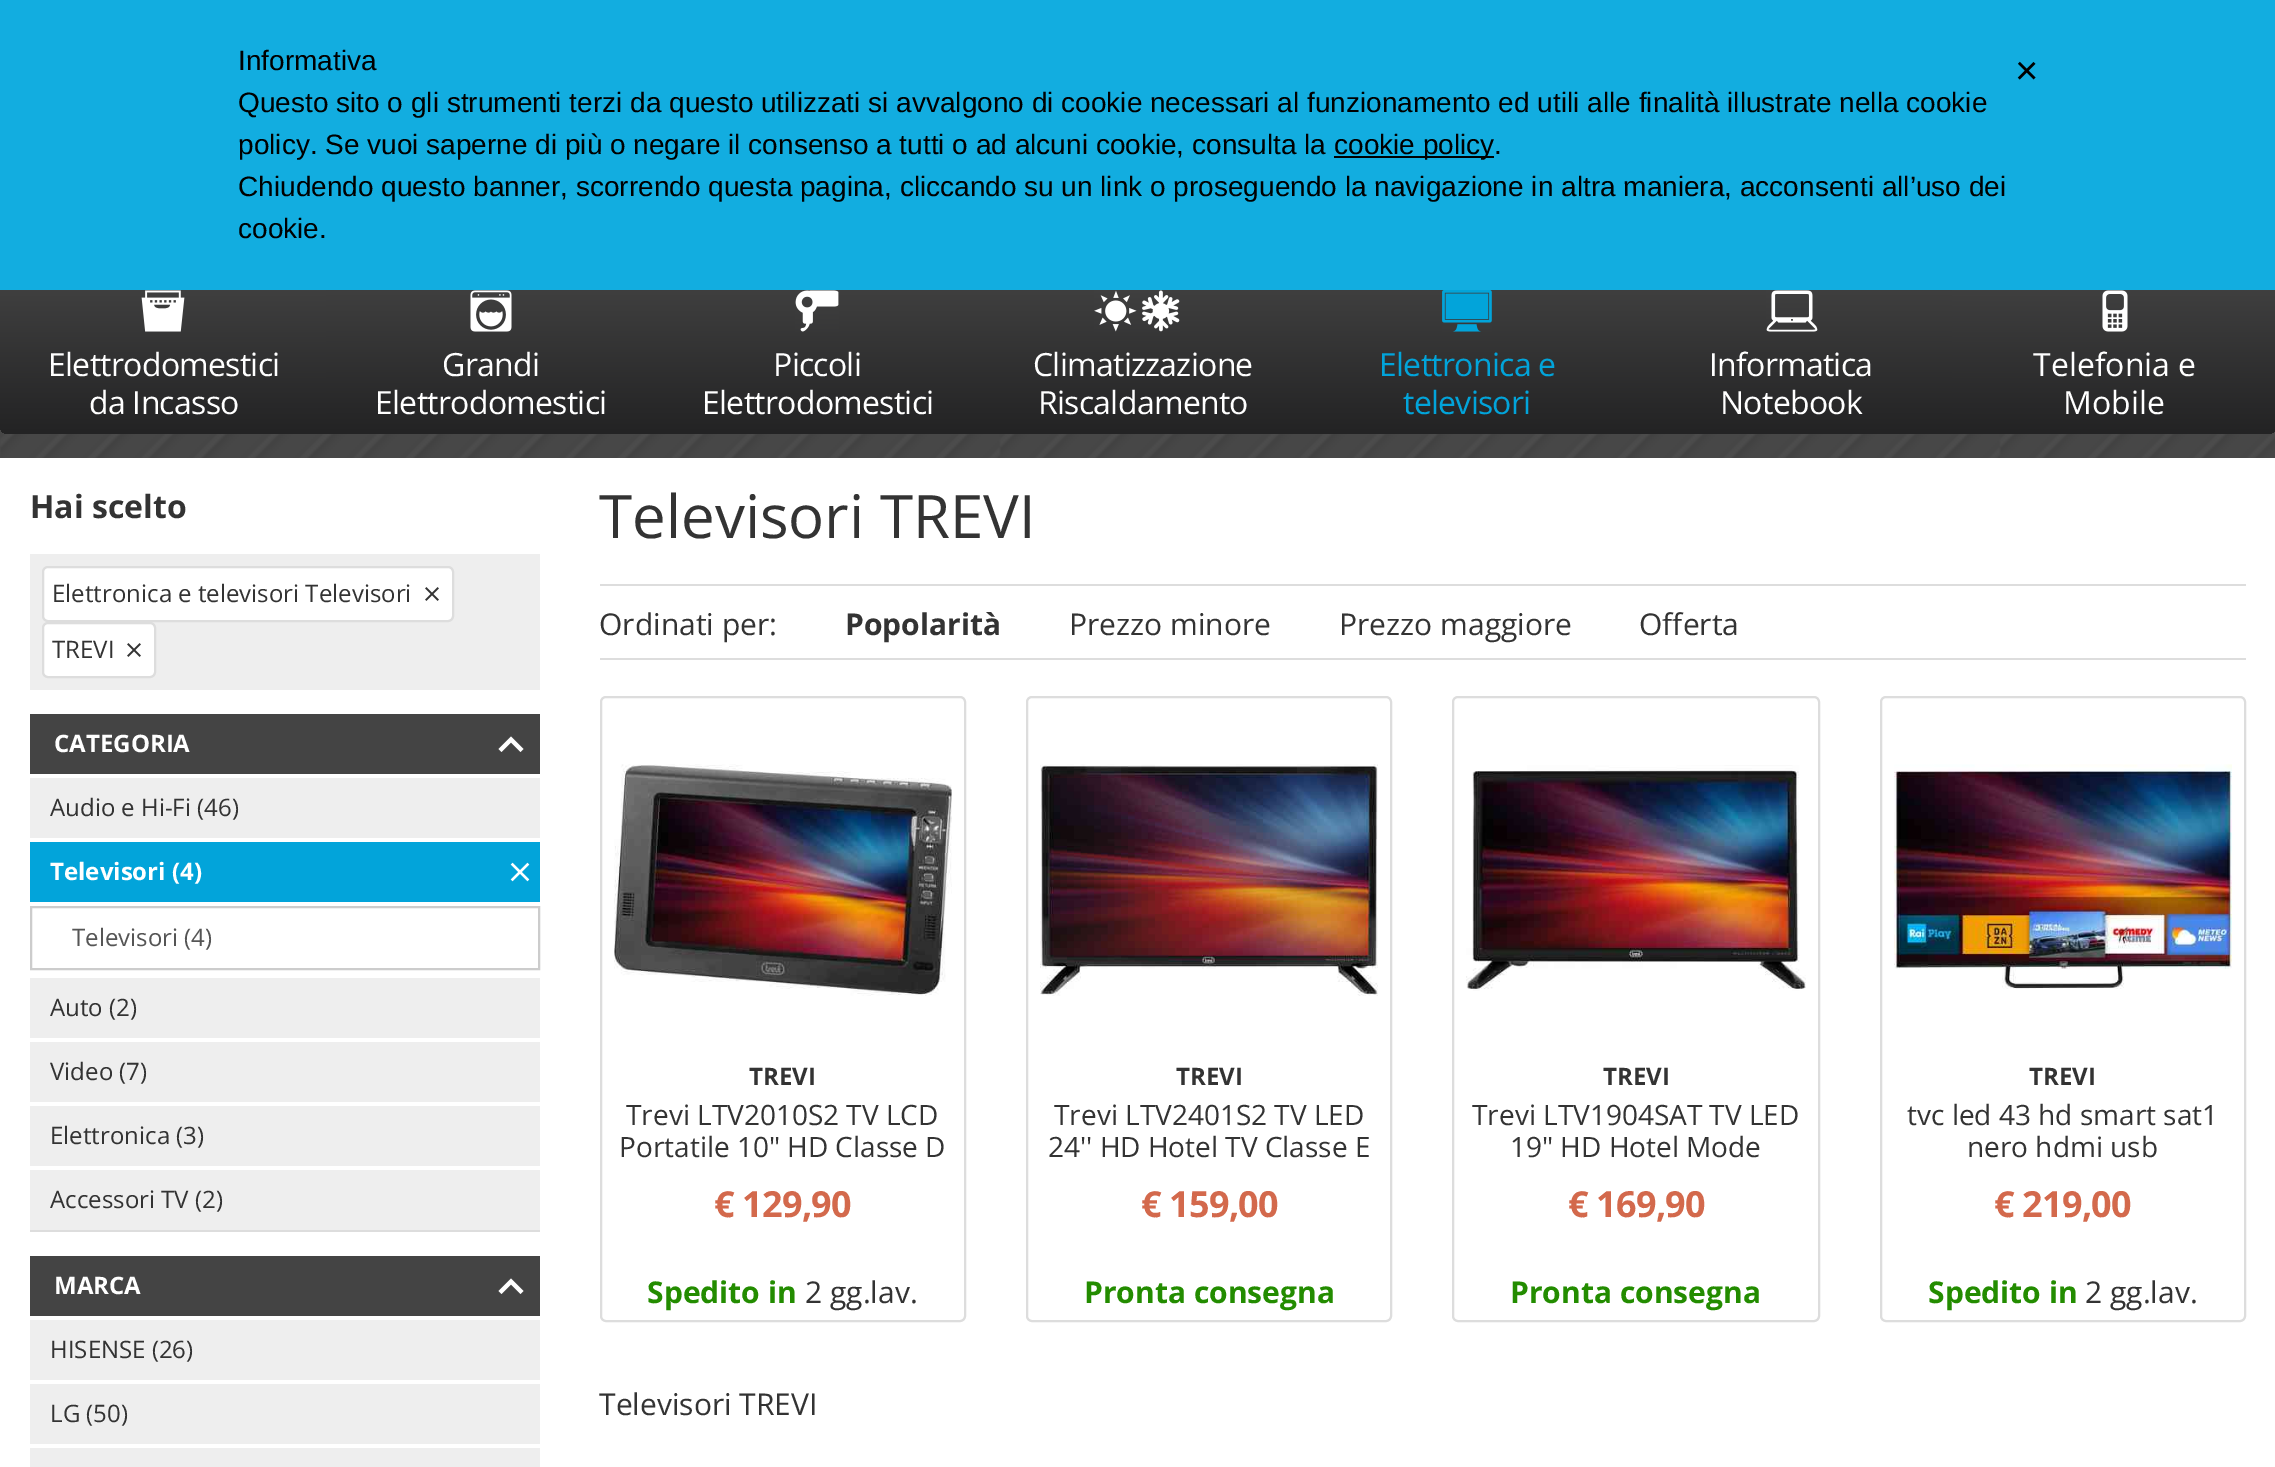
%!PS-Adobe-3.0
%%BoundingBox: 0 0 2275 1467
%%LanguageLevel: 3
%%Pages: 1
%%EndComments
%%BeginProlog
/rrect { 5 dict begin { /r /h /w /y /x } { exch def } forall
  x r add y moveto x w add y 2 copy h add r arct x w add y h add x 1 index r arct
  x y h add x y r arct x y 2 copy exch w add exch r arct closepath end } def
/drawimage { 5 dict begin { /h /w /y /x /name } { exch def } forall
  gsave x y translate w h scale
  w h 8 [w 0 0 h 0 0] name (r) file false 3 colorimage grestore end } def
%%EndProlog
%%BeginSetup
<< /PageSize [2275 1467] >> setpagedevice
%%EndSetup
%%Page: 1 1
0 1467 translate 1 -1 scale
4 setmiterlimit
1 setgray
0 0 2275 1467 rectfill
(images/1.raw) 0 426 2275 32 drawimage
gsave newpath 8 270 moveto 326 270 lineto 326 434 lineto 8 434 lineto 3.5 434 0 430.5 0 426 curveto 0 278 lineto 0 273.5 3.5 270 8 270 curveto closepath clip newpath
<< /ShadingType 2 /ColorSpace /DeviceRGB /Coords [163 270 163 434] /Extend [true true] /Function << /FunctionType 2 /Domain [0 1] /C0 [0.263 0.263 0.263] /C1 [0.137 0.137 0.141] /N 1 >> >> shfill grestore
gsave newpath 1952 270 moveto 2268 270 lineto 2272.5 270 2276 273.5 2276 278 curveto 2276 426 lineto 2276 430.5 2272.5 434 2268 434 curveto 1952 434 lineto closepath clip newpath
<< /ShadingType 2 /ColorSpace /DeviceRGB /Coords [2114 270 2114 434] /Extend [true true] /Function << /FunctionType 2 /Domain [0 1] /C0 [0.263 0.263 0.263] /C1 [0.137 0.137 0.141] /N 1 >> >> shfill grestore
0.071 0.678 0.878 setrgbcolor
0 0 2275 290 rectfill
0 setgray
1334 156 160 2 rectfill
(images/2.raw) 141 290 44 42 drawimage
gsave newpath 326 290 moveto 654 290 lineto 654 434 lineto 326 434 lineto closepath clip newpath
<< /ShadingType 2 /ColorSpace /DeviceRGB /Coords [490 270 490 434] /Extend [true true] /Function << /FunctionType 2 /Domain [0 1] /C0 [0.263 0.263 0.263] /C1 [0.137 0.137 0.141] /N 1 >> >> shfill grestore
(images/3.raw) 470 290 42 42 drawimage
gsave newpath 654 290 moveto 980 290 lineto 980 434 lineto 654 434 lineto closepath clip newpath
<< /ShadingType 2 /ColorSpace /DeviceRGB /Coords [817 270 817 434] /Extend [true true] /Function << /FunctionType 2 /Domain [0 1] /C0 [0.263 0.263 0.263] /C1 [0.137 0.137 0.141] /N 1 >> >> shfill grestore
(images/4.raw) 795 290 44 42 drawimage
gsave newpath 980 290 moveto 1306 290 lineto 1306 434 lineto 980 434 lineto closepath clip newpath
<< /ShadingType 2 /ColorSpace /DeviceRGB /Coords [1143 270 1143 434] /Extend [true true] /Function << /FunctionType 2 /Domain [0 1] /C0 [0.263 0.263 0.263] /C1 [0.137 0.137 0.141] /N 1 >> >> shfill grestore
(images/5.raw) 1094 290 86 42 drawimage
gsave newpath 1306 290 moveto 1628 290 lineto 1628 434 lineto 1306 434 lineto closepath clip newpath
<< /ShadingType 2 /ColorSpace /DeviceRGB /Coords [1467 270 1467 434] /Extend [true true] /Function << /FunctionType 2 /Domain [0 1] /C0 [0.263 0.263 0.263] /C1 [0.137 0.137 0.141] /N 1 >> >> shfill grestore
(images/6.raw) 1442 290 50 42 drawimage
gsave newpath 1628 290 moveto 1952 290 lineto 1952 434 lineto 1628 434 lineto closepath clip newpath
<< /ShadingType 2 /ColorSpace /DeviceRGB /Coords [1790 270 1790 434] /Extend [true true] /Function << /FunctionType 2 /Domain [0 1] /C0 [0.263 0.263 0.263] /C1 [0.137 0.137 0.141] /N 1 >> >> shfill grestore
(images/7.raw) 1766 290 52 42 drawimage
(images/8.raw) 2102 290 26 42 drawimage
0.933 setgray
30 554 510 136 rectfill
1 setgray
43 567 410 54 5 rrect gsave fill grestore
0.867 setgray
2 setlinewidth
stroke
(images/9.raw) 425 587 14 14 drawimage
1 setgray
43 623 112 54 5 rrect gsave fill grestore
0.867 setgray
stroke
(images/9.raw) 127 643 14 14 drawimage
0.267 setgray
30 714 510 60 rectfill
1 setgray
newpath 501.5 752 moveto 511 742.5 lineto 520.5 752 lineto 523.5 749 lineto 511 736.5 lineto 498.5 749 lineto closepath fill
0.867 setgray
30 1230 510 2 rectfill
0.933 setgray
30 778 510 60 rectfill
0.008 0.643 0.855 setrgbcolor
30 842 510 60 rectfill
(images/10.raw) 510 862 20 20 drawimage
0.8 setgray
31 907 508 62 rectstroke
0.933 setgray
30 978 510 60 rectfill
30 1042 510 60 rectfill
30 1106 510 60 rectfill
30 1170 510 60 rectfill
0.267 setgray
30 1256 510 60 rectfill
1 setgray
newpath 501.5 1294 moveto 511 1284.5 lineto 520.5 1294 lineto 523.5 1291 lineto 511 1278.5 lineto 498.5 1291 lineto closepath fill
0.933 setgray
30 1320 510 60 rectfill
30 1384 510 60 rectfill
30 1448 510 19 rectfill
0.867 setgray
600 584 1646 2 rectfill
600 658 1646 2 rectfill
601 697 364 624 5 rrect stroke
(images/11.raw) 614 764 338 232 drawimage
1027 697 364 624 5 rrect stroke
(images/12.raw) 1040 764 338 232 drawimage
1453 697 366 624 5 rrect stroke
(images/13.raw) 1466 765 340 226 drawimage
1881 697 364 624 5 rrect stroke
(images/14.raw) 1894 764 338 225 drawimage
/LiberationSans-Regular [28 0 0 -28 0 0] selectfont
0 setgray
238 70 moveto (Informativa) show
238 112 moveto (Questo sito o gli strumenti terzi da questo utilizzati si avvalgono di cookie necessari al funzionamento ed utili alle finalità illustrate nella cookie) show
238 154 moveto (policy. Se vuoi saperne di più o negare il consenso a tutti o ad alcuni cookie, consulta la) show
1334 154 moveto (cookie policy.) show
238 196 moveto (Chiudendo questo banner, scorrendo questa pagina, cliccando su un link o proseguendo la navigazione in altra maniera, acconsenti all’uso dei) show
238 238 moveto (cookie.) show
/LiberationSans-Regular [40 0 0 -40 0 0] selectfont
2015 84 moveto (×) show
/OpenSans-Regular [32 0 0 -32 0 0] selectfont
1 setgray
48 376 moveto -0.75 0 (Elettrodomestici) ashow
89 414 moveto -0.75 0 (da Incasso) ashow
442 376 moveto -0.75 0 (Grandi) ashow
375 414 moveto -0.75 0 (Elettrodomestici) ashow
773 376 moveto -0.75 0 (Piccoli) ashow
702 414 moveto -0.75 0 (Elettrodomestici) ashow
1033 376 moveto -0.75 0 (Climatizzazione) ashow
1038 414 moveto -0.75 0 (Riscaldamento) ashow
0.008 0.643 0.855 setrgbcolor
1379 376 moveto -0.75 0 (Elettronica e) ashow
1403 414 moveto -0.75 0 (televisori) ashow
1 setgray
1709 376 moveto -0.75 0 (Informatica) ashow
1720 414 moveto -0.75 0 (Notebook) ashow
2033 376 moveto (Telefonia e) show
2063 414 moveto (Mobile) show
/OpenSans-Bold [32 0 0 -32 0 0] selectfont
0.2 setgray
30 518 moveto (Hai scelto) show
/OpenSans-Regular [24 0 0 -24 0 0] selectfont
52 602 moveto (Elettronica e televisori Televisori) show
52 658 moveto (TREVI) show
/OpenSans-Bold [24 0 0 -24 0 0] selectfont
1 setgray
54 752 moveto (CATEGORIA) show
/OpenSans-Regular [24 0 0 -24 0 0] selectfont
0.2 setgray
50 816 moveto (Audio e Hi-Fi \(46\)) show
/OpenSans-Bold [24 0 0 -24 0 0] selectfont
1 setgray
50 880 moveto (Televisori \(4\)) show
/OpenSans-Regular [24 0 0 -24 0 0] selectfont
0.333 setgray
72 946 moveto (Televisori \(4\)) show
0.2 setgray
50 1016 moveto (Auto \(2\)) show
50 1080 moveto (Video \(7\)) show
50 1144 moveto (Elettronica \(3\)) show
50 1208 moveto (Accessori TV \(2\)) show
/OpenSans-Bold [24 0 0 -24 0 0] selectfont
1 setgray
54 1294 moveto (MARCA) show
/OpenSans-Regular [24 0 0 -24 0 0] selectfont
0.2 setgray
50 1358 moveto (HISENSE \(26\)) show
50 1422 moveto (LG \(50\)) show
/OpenSans-Regular [60 0 0 -60 0 0] selectfont
599 538 moveto (Televisori TREVI) show
/OpenSans-Regular [30 0 0 -30 0 0] selectfont
599 635 moveto (Ordinati per:) show
/OpenSans-Bold [30 0 0 -30 0 0] selectfont
845 635 moveto (Popolarità) show
/OpenSans-Regular [30 0 0 -30 0 0] selectfont
1069 635 moveto (Prezzo minore) show
1339 635 moveto (Prezzo maggiore) show
1639 635 moveto (Offerta) show
/OpenSans-Bold [24 0 0 -24 0 0] selectfont
749 1085 moveto (TREVI) show
/OpenSans-Regular [28 0 0 -28 0 0] selectfont
626 1125 moveto (Trevi LTV2010S2 TV LCD) show
619 1157 moveto (Portatile 10" HD Classe D) show
/OpenSans-Bold [36 0 0 -36 0 0] selectfont
0.827 0.412 0.298 setrgbcolor
714 1217 moveto -0.75 0 (€ 129,90) ashow
/OpenSans-Bold [30 0 0 -30 0 0] selectfont
0.137 0.549 0 setrgbcolor
647 1303 moveto (Spedito in) show
/OpenSans-Regular [30 0 0 -30 0 0] selectfont
0.2 setgray
805 1303 moveto (2 gg.lav.) show
/OpenSans-Bold [24 0 0 -24 0 0] selectfont
1176 1085 moveto (TREVI) show
/OpenSans-Regular [28 0 0 -28 0 0] selectfont
1054 1125 moveto (Trevi LTV2401S2 TV LED) show
1048 1157 moveto (24'' HD Hotel TV Classe E) show
/OpenSans-Bold [36 0 0 -36 0 0] selectfont
0.827 0.412 0.298 setrgbcolor
1141 1217 moveto -0.75 0 (€ 159,00) ashow
/OpenSans-Bold [30 0 0 -30 0 0] selectfont
0.137 0.549 0 setrgbcolor
1084 1303 moveto (Pronta consegna) show
/OpenSans-Bold [24 0 0 -24 0 0] selectfont
0.2 setgray
1603 1085 moveto (TREVI) show
/OpenSans-Regular [28 0 0 -28 0 0] selectfont
1472 1125 moveto (Trevi LTV1904SAT TV LED) show
1510 1157 moveto (19" HD Hotel Mode) show
/OpenSans-Bold [36 0 0 -36 0 0] selectfont
0.827 0.412 0.298 setrgbcolor
1568 1217 moveto -0.75 0 (€ 169,90) ashow
/OpenSans-Bold [30 0 0 -30 0 0] selectfont
0.137 0.549 0 setrgbcolor
1510 1303 moveto (Pronta consegna) show
/OpenSans-Bold [24 0 0 -24 0 0] selectfont
0.2 setgray
2029 1085 moveto (TREVI) show
/OpenSans-Regular [28 0 0 -28 0 0] selectfont
1907 1125 moveto (tvc led 43 hd smart sat1) show
1967 1157 moveto (nero hdmi usb) show
/OpenSans-Bold [36 0 0 -36 0 0] selectfont
0.827 0.412 0.298 setrgbcolor
1994 1217 moveto -0.75 0 (€ 219,00) ashow
/OpenSans-Bold [30 0 0 -30 0 0] selectfont
0.137 0.549 0 setrgbcolor
1928 1303 moveto (Spedito in) show
/OpenSans-Regular [30 0 0 -30 0 0] selectfont
0.2 setgray
2085 1303 moveto (2 gg.lav.) show
599 1415 moveto (Televisori TREVI) show
showpage
%%EOF
